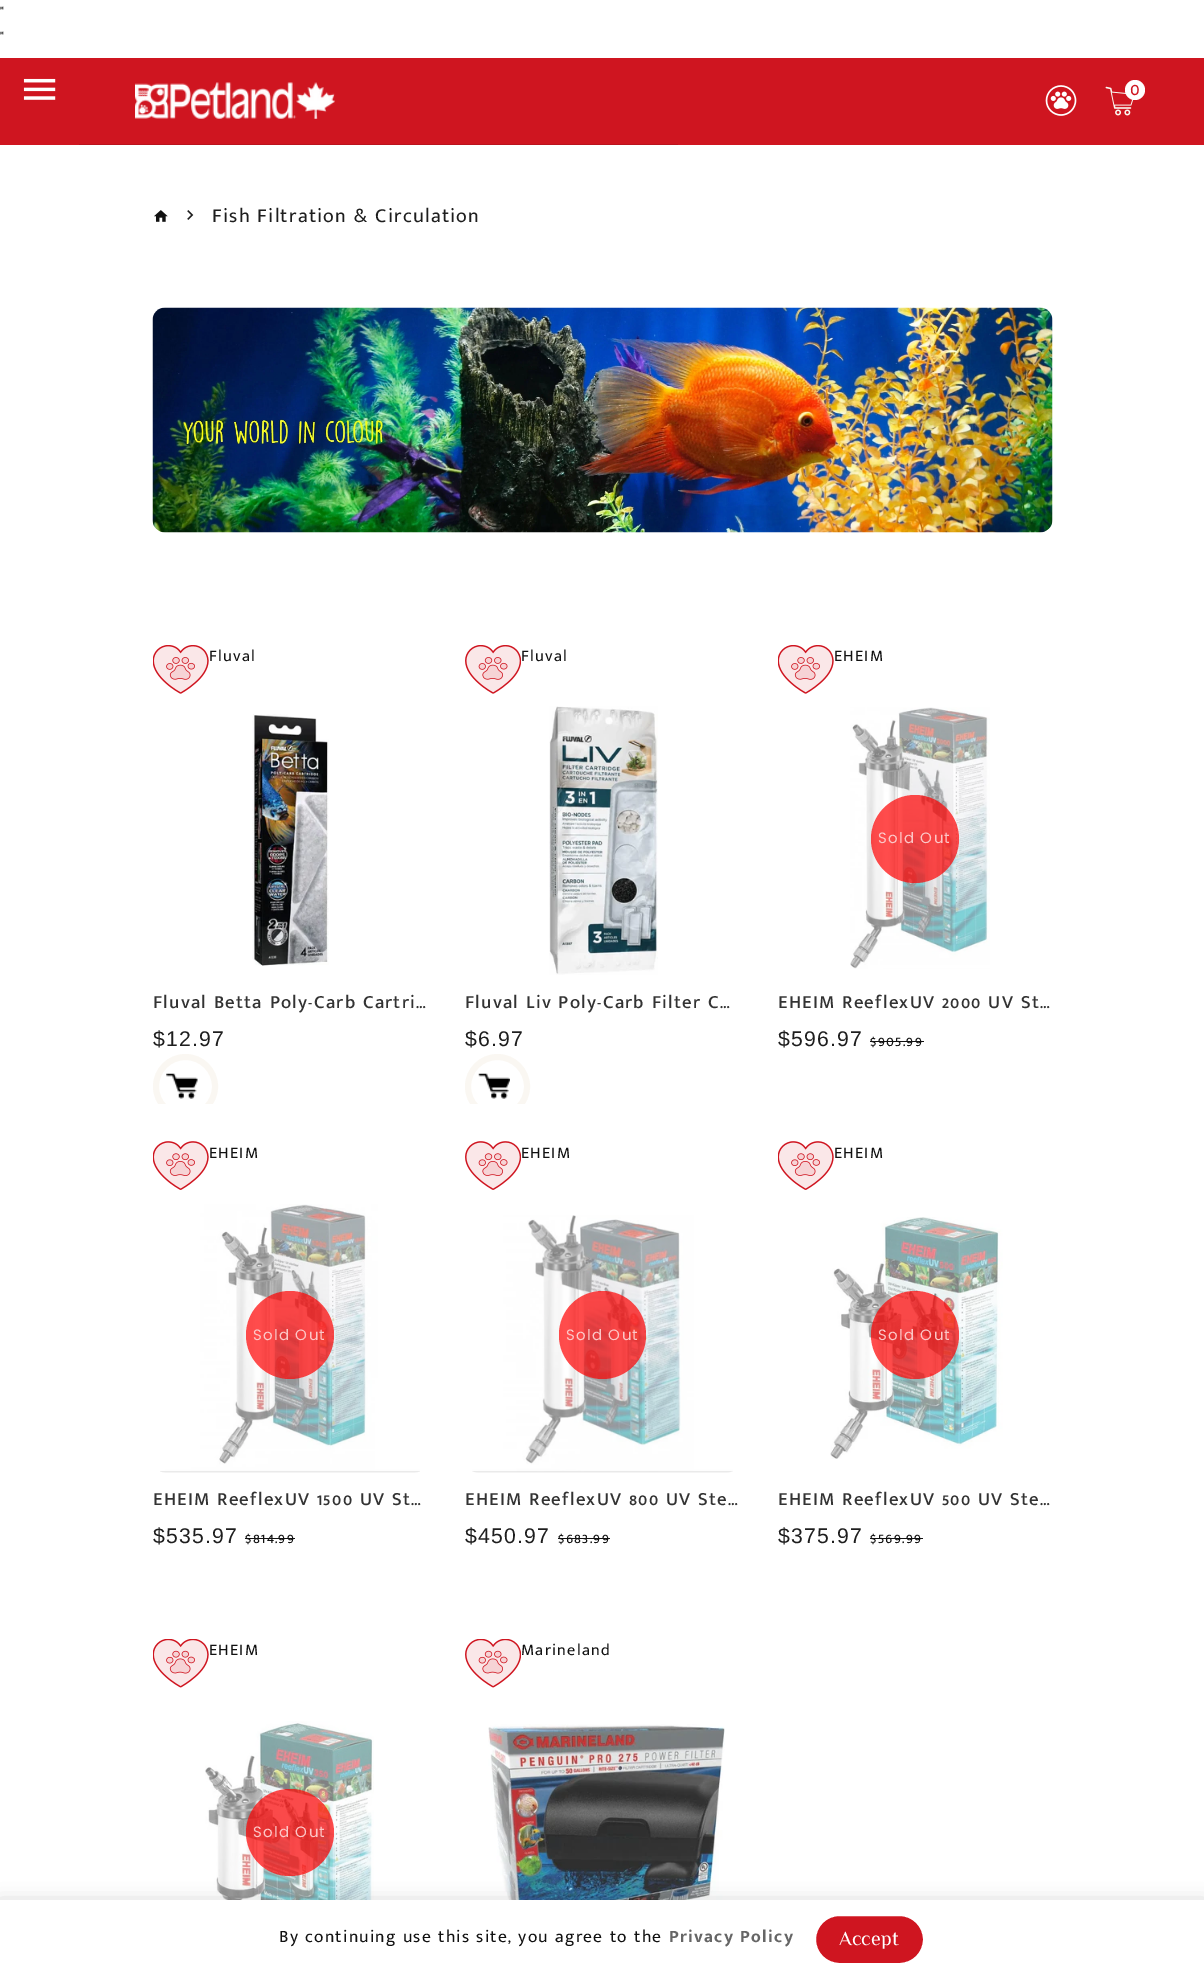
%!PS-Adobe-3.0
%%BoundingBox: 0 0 1204 1978
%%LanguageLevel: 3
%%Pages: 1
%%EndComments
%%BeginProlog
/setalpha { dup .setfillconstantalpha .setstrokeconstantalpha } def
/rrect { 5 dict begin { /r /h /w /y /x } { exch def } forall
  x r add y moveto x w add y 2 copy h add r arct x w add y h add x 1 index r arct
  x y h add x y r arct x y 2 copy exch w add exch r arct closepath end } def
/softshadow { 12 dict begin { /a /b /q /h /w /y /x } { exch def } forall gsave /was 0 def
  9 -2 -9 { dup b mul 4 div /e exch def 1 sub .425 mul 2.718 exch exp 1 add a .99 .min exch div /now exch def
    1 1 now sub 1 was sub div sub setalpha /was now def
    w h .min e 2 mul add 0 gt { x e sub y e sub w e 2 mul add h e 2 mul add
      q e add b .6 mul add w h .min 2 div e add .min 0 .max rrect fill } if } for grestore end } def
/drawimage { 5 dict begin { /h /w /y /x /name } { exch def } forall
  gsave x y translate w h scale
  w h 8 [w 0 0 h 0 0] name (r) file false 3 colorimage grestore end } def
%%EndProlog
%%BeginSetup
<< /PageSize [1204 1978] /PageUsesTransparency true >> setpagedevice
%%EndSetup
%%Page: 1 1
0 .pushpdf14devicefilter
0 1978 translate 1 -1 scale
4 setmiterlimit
1 setgray
0 0 1204 1978 rectfill
0.812 0.082 0.125 setrgbcolor
0 58 1204 87 rectfill
(images/1.raw) 23 78 33 22 drawimage
0.729 0.075 0.114 setrgbcolor
79 144 599 1 rectfill
(images/2.raw) 135 82 200 37 drawimage
(images/3.raw) 1045 85 32 31 drawimage
(images/4.raw) 1105 86 29 30 drawimage
1 setgray
newpath 1135 90 10 0 360 arc closepath fill
(images/5.raw) 154 210 14 12 drawimage
(images/6.raw) 187 210 7 10 drawimage
(images/7.raw) 152 307 901 226 drawimage
(images/8.raw) 153 645 56 49 drawimage
(images/9.raw) 252 714 77 252 drawimage
gsave
134 645 312 459 rectclip
0.98 0.969 0.949 setrgbcolor
6 setlinewidth
newpath 185.5 1086.5 29.5 0 360 arc closepath stroke
grestore
(images/10.raw) 166 1073 32 26 drawimage
(images/11.raw) 465 645 56 49 drawimage
(images/12.raw) 549 706 109 269 drawimage
gsave
446 645 313 459 rectclip
0.98 0.969 0.949 setrgbcolor
6 setlinewidth
newpath 497.5 1086.5 29.5 0 360 arc closepath stroke
grestore
(images/13.raw) 478 1073 32 26 drawimage
0.067 setgray
870 1041 54 1 rectfill
(images/8.raw) 778 645 56 49 drawimage
(images/14.raw) 850 707 140 262 drawimage
0.7 setalpha
1 0 0 setrgbcolor
newpath 915 839 44 0 360 arc closepath fill
1 setalpha
0.067 setgray
245 1538 50 1 rectfill
(images/15.raw) 153 1141 56 49 drawimage
(images/16.raw) 160 1204 260 269 drawimage
0.7 setalpha
1 0 0 setrgbcolor
newpath 290 1335 44 0 360 arc closepath fill
1 setalpha
0.067 setgray
558 1538 52 1 rectfill
(images/17.raw) 465 1141 56 49 drawimage
(images/18.raw) 472 1215 261 258 drawimage
0.7 setalpha
1 0 0 setrgbcolor
559 1291 87 88 43.5 rrect fill
1 setalpha
0.067 setgray
870 1538 53 1 rectfill
(images/15.raw) 778 1141 56 49 drawimage
(images/19.raw) 830 1217 173 242 drawimage
0.7 setalpha
1 0 0 setrgbcolor
newpath 915 1335 44 0 360 arc closepath fill
1 setalpha
(images/20.raw) 153 1639 56 49 drawimage
(images/21.raw) 205 1721 169 179 drawimage
0.7 setalpha
246 1789 88 87 43.5 rrect fill
1 setalpha
(images/22.raw) 465 1639 56 49 drawimage
(images/23.raw) 488 1724 237 176 drawimage
0 setgray
0 1903 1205 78 0 9.5 0.2 softshadow
1 setgray
0 1900 1204 78 rectfill
0.812 0.082 0.125 setrgbcolor
814.5 1914.5 110 50 25 rrect gsave fill grestore
1 setgray
3 setlinewidth
stroke
/MuktaMalar-Regular [16.25 0 0 -16.25 0 0] selectfont
0.067 setgray
0 16 moveto 1.25 0 (") ashow
0 41 moveto 1.25 0 (") ashow
/MuktaMalar-Regular [20 0 0 -20 0 0] selectfont
0.812 0.082 0.125 setrgbcolor
1130 95 moveto 1.25 0 (0) ashow
0.118 setgray
212 222 moveto 1.25 0 (Fish Filtration & Circulation) ashow
/MuktaMalar-Regular [16.25 0 0 -16.25 0 0] selectfont
0.067 setgray
209 661 moveto 1.25 0 (Fluval) ashow
/MuktaMalar-Medium [18.75 0 0 -18.75 0 0] selectfont
0.2 setgray
153 1008 moveto 1.25 0 (Fluval Betta Poly-Carb Cartri…) ashow
/LiberationSans-Regular [21.25 0 0 -21.25 0 0] selectfont
0.118 setgray
153 1046 moveto 1.25 0 ($12.97) ashow
/MuktaMalar-Regular [16.25 0 0 -16.25 0 0] selectfont
0.067 setgray
521 661 moveto 1.25 0 (Fluval) ashow
/MuktaMalar-Medium [18.75 0 0 -18.75 0 0] selectfont
0.2 setgray
465 1008 moveto 1.25 0 (Fluval Liv Poly-Carb Filter C…) ashow
/LiberationSans-Regular [21.25 0 0 -21.25 0 0] selectfont
0.118 setgray
465 1046 moveto 1.25 0 ($6.97) ashow
/MuktaMalar-Regular [16.25 0 0 -16.25 0 0] selectfont
0.067 setgray
834 661 moveto 1.25 0 (EHEIM) ashow
/MuktaMalar-Medium [18.75 0 0 -18.75 0 0] selectfont
0.2 setgray
778 1008 moveto 1.25 0 (EHEIM ReeflexUV 2000 UV St…) ashow
/LiberationSans-Regular [21.25 0 0 -21.25 0 0] selectfont
0.118 setgray
778 1046 moveto 1.25 0 ($596.97) ashow
/MuktaMalar-Regular [16.25 0 0 -16.25 0 0] selectfont
0.067 setgray
870 1046 moveto 1.25 0 ($905.99) ashow
/Poppins-Regular [15 0 0 -15 0 0] selectfont
0.988 0.78 0.78 setrgbcolor
878 843 moveto 1.25 0 (Sold Out) ashow
/MuktaMalar-Regular [16.25 0 0 -16.25 0 0] selectfont
0.067 setgray
209 1158 moveto 1.25 0 (EHEIM) ashow
/MuktaMalar-Medium [18.75 0 0 -18.75 0 0] selectfont
0.2 setgray
153 1505 moveto 1.25 0 (EHEIM ReeflexUV 1500 UV St…) ashow
/LiberationSans-Regular [21.25 0 0 -21.25 0 0] selectfont
0.118 setgray
153 1543 moveto 1.25 0 ($535.97) ashow
/MuktaMalar-Regular [16.25 0 0 -16.25 0 0] selectfont
0.067 setgray
245 1543 moveto 1.25 0 ($814.99) ashow
/Poppins-Regular [15 0 0 -15 0 0] selectfont
0.988 0.78 0.78 setrgbcolor
253 1340 moveto 1.25 0 (Sold Out) ashow
/MuktaMalar-Regular [16.25 0 0 -16.25 0 0] selectfont
0.067 setgray
521 1158 moveto 1.25 0 (EHEIM) ashow
/MuktaMalar-Medium [18.75 0 0 -18.75 0 0] selectfont
0.2 setgray
465 1505 moveto 1.25 0 (EHEIM ReeflexUV 800 UV Ste…) ashow
/LiberationSans-Regular [21.25 0 0 -21.25 0 0] selectfont
0.118 setgray
465 1543 moveto 1.25 0 ($450.97) ashow
/MuktaMalar-Regular [16.25 0 0 -16.25 0 0] selectfont
0.067 setgray
558 1543 moveto 1.25 0 ($683.99) ashow
/Poppins-Regular [15 0 0 -15 0 0] selectfont
0.988 0.78 0.78 setrgbcolor
566 1340 moveto 1.25 0 (Sold Out) ashow
/MuktaMalar-Regular [16.25 0 0 -16.25 0 0] selectfont
0.067 setgray
834 1158 moveto 1.25 0 (EHEIM) ashow
/MuktaMalar-Medium [18.75 0 0 -18.75 0 0] selectfont
0.2 setgray
778 1505 moveto 1.25 0 (EHEIM ReeflexUV 500 UV Ste…) ashow
/LiberationSans-Regular [21.25 0 0 -21.25 0 0] selectfont
0.118 setgray
778 1543 moveto 1.25 0 ($375.97) ashow
/MuktaMalar-Regular [16.25 0 0 -16.25 0 0] selectfont
0.067 setgray
870 1543 moveto 1.25 0 ($569.99) ashow
/Poppins-Regular [15 0 0 -15 0 0] selectfont
0.988 0.78 0.78 setrgbcolor
878 1340 moveto 1.25 0 (Sold Out) ashow
/MuktaMalar-Regular [16.25 0 0 -16.25 0 0] selectfont
0.067 setgray
209 1655 moveto 1.25 0 (EHEIM) ashow
/Poppins-Regular [15 0 0 -15 0 0] selectfont
0.988 0.78 0.78 setrgbcolor
253 1837 moveto 1.25 0 (Sold Out) ashow
/MuktaMalar-Regular [16.25 0 0 -16.25 0 0] selectfont
0.067 setgray
521 1655 moveto 1.25 0 (Marineland) ashow
/MuktaMalar-Regular [17.5 0 0 -17.5 0 0] selectfont
279 1942 moveto 1.25 0 (By continuing use this site, you agree to the) ashow
/MuktaMalar-Bold [17.5 0 0 -17.5 0 0] selectfont
0.4 setgray
669 1942 moveto 1.25 0 (Privacy Policy) ashow
/Philosopher-Regular [20 0 0 -20 0 0] selectfont
1 setgray
839 1945 moveto (Accept) show
.poppdf14devicefilter showpage
%%EOF
